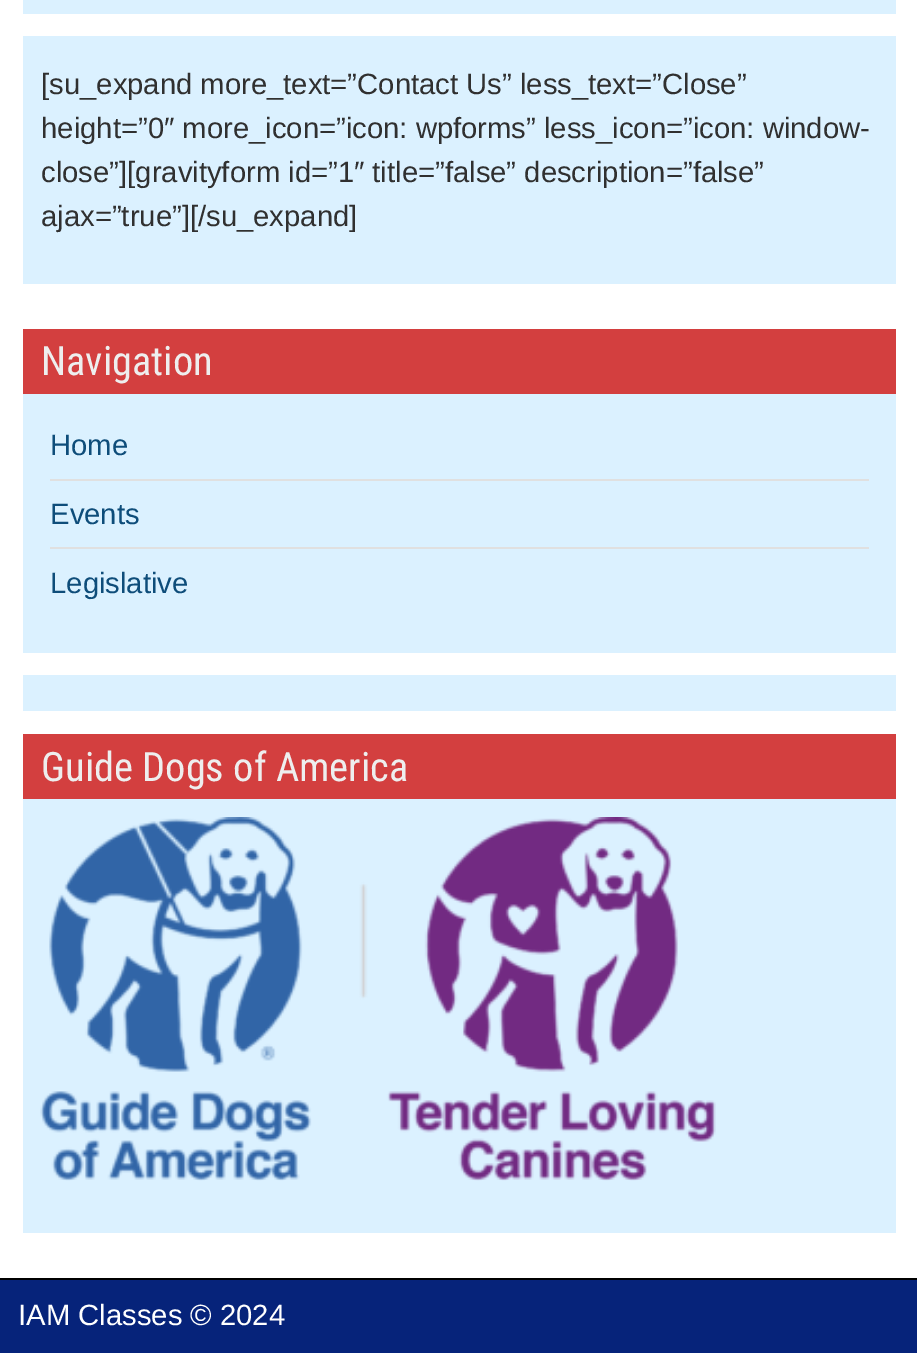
%!PS-Adobe-3.0
%%BoundingBox: 0 0 917 1353
%%LanguageLevel: 3
%%Pages: 1
%%EndComments
%%BeginProlog
/drawimage { 5 dict begin { /h /w /y /x /name } { exch def } forall
  gsave x y translate w h scale
  w h 8 [w 0 0 h 0 0] name (r) file false 3 colorimage grestore end } def
%%EndProlog
%%BeginSetup
<< /PageSize [917 1353] >> setpagedevice
%%EndSetup
%%Page: 1 1
0 1353 translate 1 -1 scale
4 setmiterlimit
1 setgray
0 0 917 1353 rectfill
0.859 0.945 1 setrgbcolor
23 0 873 14 rectfill
23 36 873 248 rectfill
23 394 873 259 rectfill
0.827 0.247 0.247 setrgbcolor
23 329 873 65 rectfill
0.878 setgray
50 479 819 2 rectfill
50 547 819 2 rectfill
0.859 0.945 1 setrgbcolor
23 675 873 36 rectfill
23 799 873 434 rectfill
0.827 0.247 0.247 setrgbcolor
23 734 873 65 rectfill
(images/1.raw) 40 817 676 364 drawimage
0.024 0.137 0.478 setrgbcolor
0 1280 917 73 rectfill
0 setgray
0 1278 917 2 rectfill
/LiberationSans-Regular [29.25 0 0 -29.25 0 0] selectfont
0.188 setgray
41 94 moveto ([su_expand more_text=”Contact Us” less_text=”Close”) show
41 138 moveto (height=”0″ more_icon=”icon: wpforms” less_icon=”icon: window-) show
41 182 moveto (close”][gravityform id=”1″ title=”false” description=”false”) show
41 226 moveto (ajax=”true”][/su_expand]) show
/RobotoCondensed-Regular [40.5 0 0 -40.5 0 0] selectfont
0.933 setgray
41 375 moveto (Navigation) show
/LiberationSans-Regular [29.25 0 0 -29.25 0 0] selectfont
0.055 0.302 0.478 setrgbcolor
50 455 moveto (Home) show
50 524 moveto (Events) show
50 593 moveto (Legislative) show
/RobotoCondensed-Regular [40.5 0 0 -40.5 0 0] selectfont
0.933 setgray
41 781 moveto (Guide Dogs of America) show
/LiberationSans-Regular [29.25 0 0 -29.25 0 0] selectfont
1 setgray
18 1325 moveto (IAM Classes © 2024) show
showpage
%%EOF
